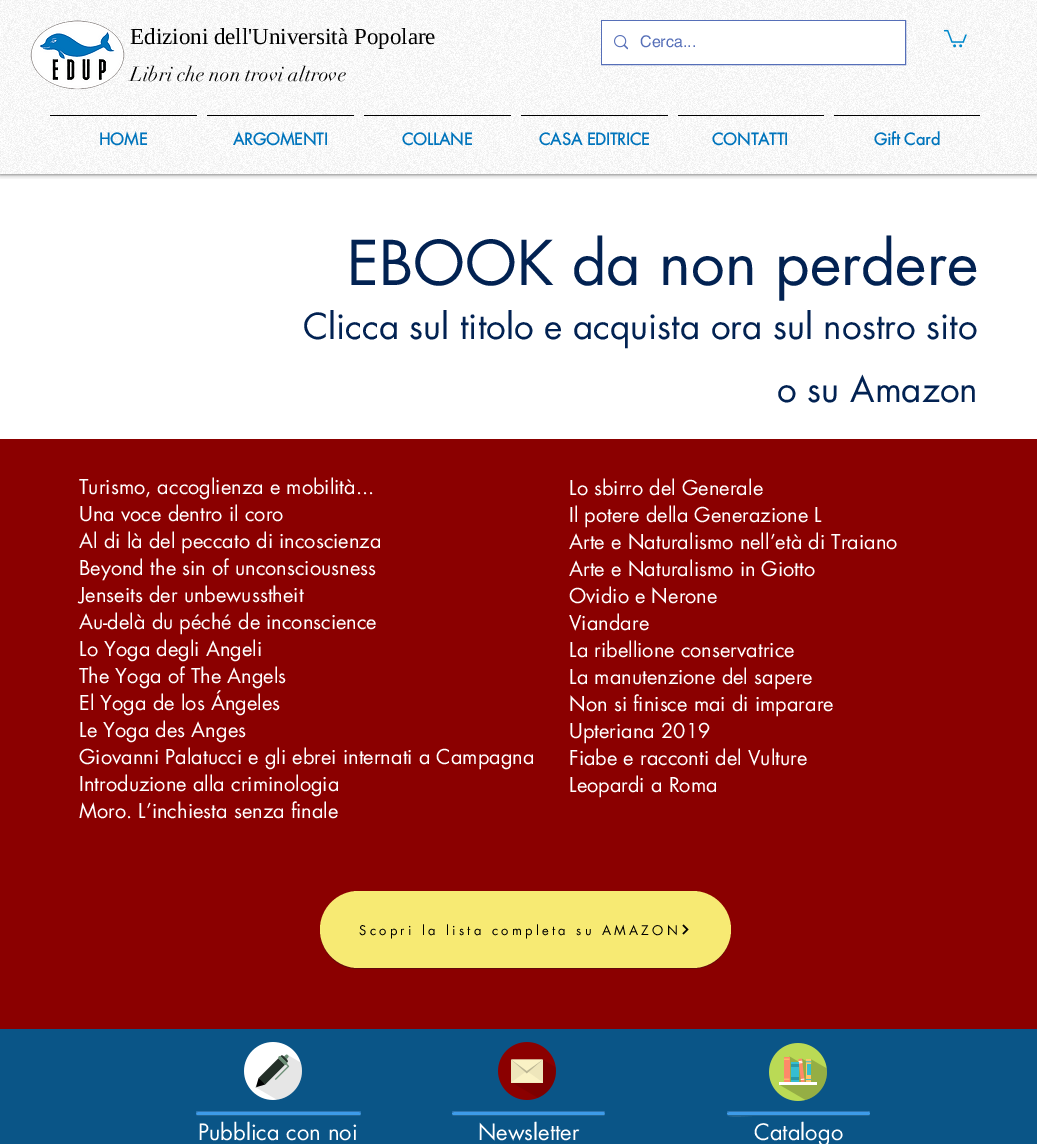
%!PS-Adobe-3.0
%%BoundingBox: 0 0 1037 1144
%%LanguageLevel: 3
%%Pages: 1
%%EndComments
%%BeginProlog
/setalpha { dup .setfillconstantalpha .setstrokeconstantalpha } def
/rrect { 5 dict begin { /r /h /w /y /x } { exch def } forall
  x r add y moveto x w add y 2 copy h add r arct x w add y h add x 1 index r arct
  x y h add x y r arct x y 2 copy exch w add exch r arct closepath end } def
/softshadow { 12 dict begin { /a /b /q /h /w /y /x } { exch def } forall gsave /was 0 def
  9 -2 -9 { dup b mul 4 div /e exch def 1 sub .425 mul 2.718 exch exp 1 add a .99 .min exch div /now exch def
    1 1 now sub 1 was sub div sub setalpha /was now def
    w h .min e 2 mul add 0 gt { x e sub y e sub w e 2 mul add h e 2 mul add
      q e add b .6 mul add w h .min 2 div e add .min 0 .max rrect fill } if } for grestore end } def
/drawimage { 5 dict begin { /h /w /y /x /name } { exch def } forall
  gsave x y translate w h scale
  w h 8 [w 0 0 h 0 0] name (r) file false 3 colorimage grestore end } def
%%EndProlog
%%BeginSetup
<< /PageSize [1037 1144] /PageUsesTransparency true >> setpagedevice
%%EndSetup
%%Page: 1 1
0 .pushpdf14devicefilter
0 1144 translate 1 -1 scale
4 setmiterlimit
1 setgray
0 0 1037 1144 rectfill
gsave
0 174 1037 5 rectclip
0 setgray
0 0 1037 174 0 2.5 0.7 softshadow
grestore
(images/1.raw) 0 0 1037 174 drawimage
(images/2.raw) 30 20 95 70 drawimage
0.337 0.435 0.722 setrgbcolor
601.5 20.5 304 44 rectstroke
1 setgray
602 21 303 43 rectfill
(images/3.raw) 614 35 14 15 drawimage
0 setgray
50 115 147 1 rectfill
207 115 147 1 rectfill
364 115 147 1 rectfill
521 115 147 1 rectfill
678 115 146 1 rectfill
834 115 146 1 rectfill
(images/4.raw) 944 29 23 19 drawimage
0.545 0 0 setrgbcolor
0 439 1037 590 rectfill
0.384 0.031 0.043 setrgbcolor
newpath 320 930 moveto 320 952 337 969 358 969 curveto 692 969 lineto 714 969 731 952 731 930 curveto 731 951 714 968 692 968 curveto 358 968 lineto 337 968 320 951 320 930 curveto closepath fill
0.969 0.918 0.451 setrgbcolor
320 891 411 77 38.5 rrect fill
(images/5.raw) 682 924 7 11 drawimage
0.039 0.333 0.529 setrgbcolor
0 1029 1037 115 rectfill
(images/6.raw) 244 1042 58 58 drawimage
0.137 0.4 0.576 setrgbcolor
newpath 196 1114 moveto 196 1115 lineto 198 1116 lineto 359 1116 lineto 360 1116 361 1115 361 1114 curveto 361 1114 360 1115 359 1115 curveto 198 1115 lineto 197 1115 196 1114 196 1114 curveto closepath fill
0.239 0.608 0.914 setrgbcolor
196 1111 165 4 2 rrect fill
0.25 setalpha
0 setgray
newpath 198 1112 moveto 359 1112 lineto 360 1112 361 1113 361 1114 curveto 361 1112 360 1111 359 1111 curveto 198 1111 lineto 197 1111 196 1112 196 1114 curveto 196 1113 197 1112 198 1112 curveto closepath fill
1 setalpha
(images/7.raw) 498 1042 58 58 drawimage
0.137 0.4 0.576 setrgbcolor
newpath 452 1114 moveto 452 1115 lineto 454 1116 lineto 603 1116 lineto 604 1116 605 1115 605 1114 curveto 605 1114 604 1115 603 1115 curveto 453 1115 lineto closepath fill
0.239 0.608 0.914 setrgbcolor
452 1111 153 4 2 rrect fill
0.25 setalpha
0 setgray
newpath 454 1112 moveto 604 1112 lineto 605 1114 lineto 605 1113 605 1111 603 1111 curveto 454 1111 lineto 453 1111 452 1112 452 1113 curveto closepath fill
1 setalpha
(images/8.raw) 769 1043 58 58 drawimage
0.137 0.4 0.576 setrgbcolor
newpath 727 1114 moveto 726 1119 748 1116 752 1116 curveto 868 1116 lineto 870 1115 lineto 870 1114 lineto 870 1114 869 1115 868 1115 curveto 728 1115 lineto closepath fill
0.239 0.608 0.914 setrgbcolor
727 1111 143 4 2 rrect fill
0.25 setalpha
0 setgray
newpath 729 1112 moveto 869 1112 lineto 870 1113 lineto 870 1112 lineto 868 1111 lineto 729 1111 lineto 728 1111 727 1112 727 1113 curveto closepath fill
/LiberationSerif-Regular [23 0 0 -23 0 0] selectfont
1 setalpha
130 44 moveto (Edizioni dell'Università Popolare) show
/helvetica-Regular [16 0 0 -16 0 0] selectfont
0.337 0.435 0.722 setrgbcolor
640 47 moveto (Cerca...) show
/didot-Regular [20 0 0 -20 0 0] selectfont
0 setgray
130 81 moveto (Libri che non trovi altrove) show
/futura-Bold [16 0 0 -16 0 0] selectfont
0 0.455 0.737 setrgbcolor
99 145 moveto (HOME) show
233 145 moveto (ARGOMENTI) show
402 145 moveto (COLLANE) show
539 145 moveto (CASA EDITRICE) show
712 145 moveto (CONTATTI) show
874 145 moveto (Gift Card) show
/futura-Regular [60 0 0 -60 0 0] selectfont
0.008 0.133 0.322 setrgbcolor
347 285 moveto (EBOOK da non perdere) show
/futura-Regular [35 0 0 -35 0 0] selectfont
303 339 moveto (Clicca sul titolo e acquista ora sul nostro sito) show
777 402 moveto (o su Amazon) show
/futura-Regular [20 0 0 -20 0 0] selectfont
1 setgray
79 494 moveto (Turismo, accoglienza e mobilità...) show
79 521 moveto (Una voce dentro il coro) show
79 548 moveto (Al di là del peccato di incoscienza) show
79 575 moveto (Beyond the sin of unconsciousness) show
79 602 moveto (Jenseits der unbewusstheit) show
79 629 moveto (Au-delà du péché de inconscience) show
79 656 moveto (Lo Yoga degli Angeli) show
79 683 moveto (The Yoga of The Angels) show
79 710 moveto (El Yoga de los Ángeles) show
79 737 moveto (Le Yoga des Anges) show
79 764 moveto (Giovanni Palatucci e gli ebrei internati a Campagna) show
79 791 moveto (Introduzione alla criminologia) show
79 818 moveto (Moro. L’inchiesta senza finale) show
569 495 moveto (Lo sbirro del Generale) show
569 522 moveto (Il potere della Generazione L) show
569 549 moveto (Arte e Naturalismo nell’età di Traiano) show
569 576 moveto (Arte e Naturalismo in Giotto) show
569 603 moveto (Ovidio e Nerone) show
569 630 moveto (Viandare) show
569 657 moveto (La ribellione conservatrice) show
569 684 moveto (La manutenzione del sapere) show
569 711 moveto (Non si finisce mai di imparare) show
569 738 moveto (Upteriana 2019) show
569 765 moveto (Fiabe e racconti del Vulture) show
569 792 moveto (Leopardi a Roma) show
/futura-Regular [13 0 0 -13 0 0] selectfont
0 setgray
359 935 moveto 3.25 0 (Scopri la lista completa su AMAZON) ashow
/futura-Regular [22 0 0 -22 0 0] selectfont
1 setgray
198 1140 moveto (Pubblica con noi) show
478 1140 moveto (Newsletter) show
754 1140 moveto (Catalogo) show
.poppdf14devicefilter showpage
%%EOF
